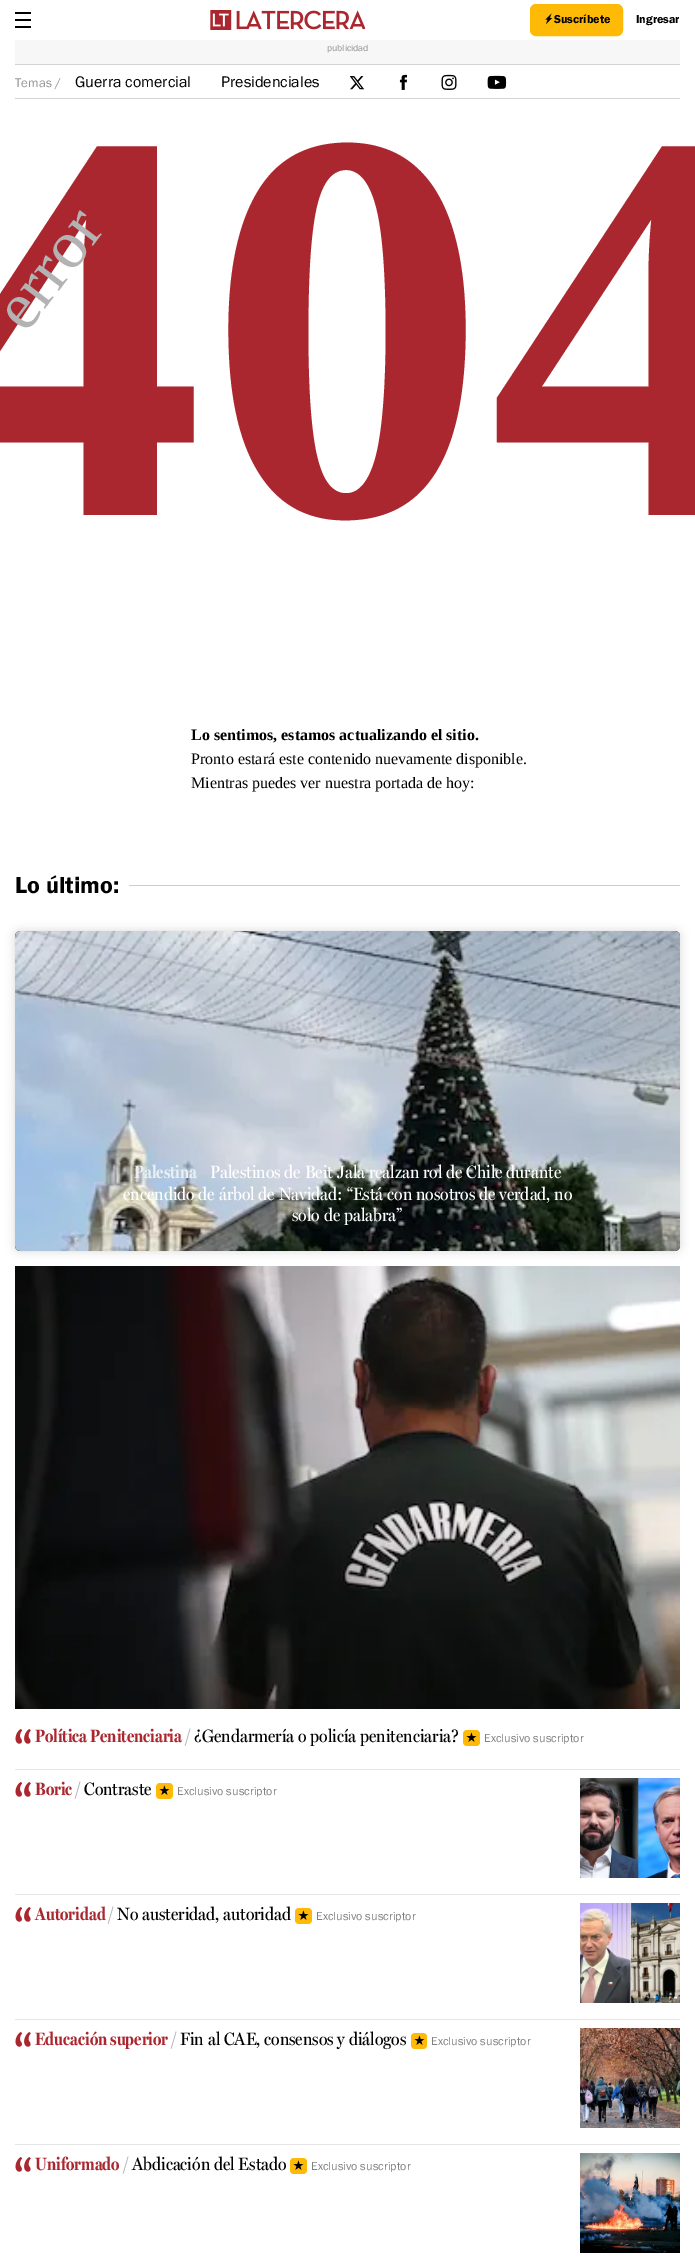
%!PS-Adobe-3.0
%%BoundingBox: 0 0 695 2259
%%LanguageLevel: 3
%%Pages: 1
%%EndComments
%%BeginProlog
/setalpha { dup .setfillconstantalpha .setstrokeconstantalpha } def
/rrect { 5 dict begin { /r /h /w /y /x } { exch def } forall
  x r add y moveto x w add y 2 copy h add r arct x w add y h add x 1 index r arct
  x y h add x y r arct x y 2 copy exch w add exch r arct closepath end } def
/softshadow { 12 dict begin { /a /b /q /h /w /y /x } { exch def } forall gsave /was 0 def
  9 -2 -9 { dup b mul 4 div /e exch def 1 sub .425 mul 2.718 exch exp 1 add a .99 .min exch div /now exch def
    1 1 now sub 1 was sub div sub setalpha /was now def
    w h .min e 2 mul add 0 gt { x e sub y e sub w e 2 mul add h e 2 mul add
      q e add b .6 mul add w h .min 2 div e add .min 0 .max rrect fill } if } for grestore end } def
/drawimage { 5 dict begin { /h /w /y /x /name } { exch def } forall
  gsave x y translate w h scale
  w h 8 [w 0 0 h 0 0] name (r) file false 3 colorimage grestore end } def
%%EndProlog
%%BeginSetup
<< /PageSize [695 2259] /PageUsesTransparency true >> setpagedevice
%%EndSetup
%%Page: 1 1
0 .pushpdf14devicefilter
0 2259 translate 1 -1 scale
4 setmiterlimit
1 setgray
0 0 695 2259 rectfill
0 setgray
15 19 16 2 rectfill
15 12 16 2 rectfill
15 26 16 2 rectfill
(images/1.raw) 210 10 155 20 drawimage
1 0.729 0.027 setrgbcolor
530.5 4.5 92 31 5.5 rrect gsave fill grestore
stroke
(images/2.raw) 545 13 8 12 drawimage
0.969 setgray
15 40 665 24 rectfill
0.827 setgray
15 64 665 1 rectfill
15 98 665 1 rectfill
(images/3.raw) 349 76 16 14 drawimage
(images/4.raw) 399 74 8 16 drawimage
(images/5.raw) 441 74 16 16 drawimage
(images/6.raw) 487 75 20 14 drawimage
0.8 setgray
129 885 551 1 rectfill
0 setgray
15 931 665 320 5 5 0.15 softshadow
(images/7.raw) 15 931 665 320 drawimage
(images/8.raw) 15 1266 665 443 drawimage
(images/9.raw) 15 1729 16 15 drawimage
1 0.729 0.027 setrgbcolor
463 1730 17 16 4 rrect fill
(images/10.raw) 466 1732 11 10 drawimage
0.902 setgray
15 1769 665 1 rectfill
(images/9.raw) 15 1782 16 15 drawimage
1 0.729 0.027 setrgbcolor
156 1783 17 16 4 rrect fill
(images/10.raw) 159 1785 11 10 drawimage
(images/11.raw) 580 1778 100 100 drawimage
0.902 setgray
15 1894 665 1 rectfill
(images/9.raw) 15 1907 16 15 drawimage
1 0.729 0.027 setrgbcolor
295 1908 17 16 4 rrect fill
(images/10.raw) 298 1910 11 10 drawimage
(images/12.raw) 580 1903 100 100 drawimage
0.902 setgray
15 2019 665 1 rectfill
(images/9.raw) 15 2032 16 15 drawimage
1 0.729 0.027 setrgbcolor
411 2033 16 16 4 rrect fill
(images/10.raw) 414 2035 11 10 drawimage
(images/13.raw) 580 2028 100 100 drawimage
0.902 setgray
15 2144 665 1 rectfill
(images/9.raw) 15 2157 16 15 drawimage
1 0.729 0.027 setrgbcolor
290 2158 17 16 4 rrect fill
(images/10.raw) 293 2160 11 10 drawimage
(images/14.raw) 580 2153 100 100 drawimage
/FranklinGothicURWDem-Regular [12 0 0 -12 0 0] selectfont
0 setgray
554 23 moveto (Suscríbete) show
636 23 moveto (Ingresar) show
/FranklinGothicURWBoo-Regular [9.5 0 0 -9.5 0 0] selectfont
0.58 setgray
327 51 moveto (publicidad) show
/FranklinGothicURWBoo-Regular [13 0 0 -13 0 0] selectfont
15 87 moveto (Temas /) show
/FranklinGothicURWBoo-Regular [16 0 0 -16 0 0] selectfont
0 setgray
75 87 moveto (Guerra comercial) show
221 87 moveto (Presidenciales) show
/LiberationSerif-Bold [565 0 0 -565 0 0] selectfont
0.667 0.153 0.184 setrgbcolor
-76 515 moveto (404) show
/LiberationSerif-Regular [68 0 0 -68 0 0] selectfont
0.702 setgray
gsave 26 334 translate -52.8 rotate 0 0 moveto (error) show grestore
/LiberationSerif-Bold [16 0 0 -16 0 0] selectfont
0 setgray
191 740 moveto (Lo sentimos, estamos actualizando el sitio.) show
/LiberationSerif-Regular [16 0 0 -16 0 0] selectfont
191 764 moveto (Pronto estará este contenido nuevamente disponible.) show
191 788 moveto (Mientras puedes ver nuestra portada de hoy:) show
/FranklinGothicURWDem-Regular [24 0 0 -24 0 0] selectfont
15 893 moveto (Lo último:) show
/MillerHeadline-Bold [18 0 0 -18 0 0] selectfont
0.918 0.937 0.953 setrgbcolor
134 1178 moveto (Palestina) show
/MillerHeadline-Regular [18 0 0 -18 0 0] selectfont
1 setgray
210 1178 moveto (Palestinos de Beit Jala realzan rol de Chile durante) show
123 1200 moveto (encendido de árbol de Navidad: “Está con nosotros de verdad, no) show
292 1221 moveto (solo de palabra”) show
/MillerHeadline-Bold [18 0 0 -18 0 0] selectfont
0.667 0.153 0.184 setrgbcolor
35 1742 moveto (Política Penitenciaria) show
0.702 setgray
185 1742 moveto (/) show
/MillerHeadline-Regular [18 0 0 -18 0 0] selectfont
0 setgray
194 1742 moveto (¿Gendarmería o policía penitenciaria?) show
/FranklinGothicURWBoo-Regular [12 0 0 -12 0 0] selectfont
0.502 setgray
484 1742 moveto (Exclusivo suscriptor) show
/MillerHeadline-Bold [18 0 0 -18 0 0] selectfont
0.667 0.153 0.184 setrgbcolor
35 1795 moveto (Boric) show
0.702 setgray
75 1795 moveto (/) show
/MillerHeadline-Regular [18 0 0 -18 0 0] selectfont
0 setgray
84 1795 moveto (Contraste) show
/FranklinGothicURWBoo-Regular [12 0 0 -12 0 0] selectfont
0.502 setgray
177 1795 moveto (Exclusivo suscriptor) show
/MillerHeadline-Bold [18 0 0 -18 0 0] selectfont
0.667 0.153 0.184 setrgbcolor
35 1920 moveto (Autoridad) show
0.702 setgray
108 1920 moveto (/) show
/MillerHeadline-Regular [18 0 0 -18 0 0] selectfont
0 setgray
117 1920 moveto (No austeridad, autoridad) show
/FranklinGothicURWBoo-Regular [12 0 0 -12 0 0] selectfont
0.502 setgray
316 1920 moveto (Exclusivo suscriptor) show
/MillerHeadline-Bold [18 0 0 -18 0 0] selectfont
0.667 0.153 0.184 setrgbcolor
35 2045 moveto (Educación superior) show
0.702 setgray
171 2045 moveto (/) show
/MillerHeadline-Regular [18 0 0 -18 0 0] selectfont
0 setgray
180 2045 moveto (Fin al CAE, consensos y diálogos) show
/FranklinGothicURWBoo-Regular [12 0 0 -12 0 0] selectfont
0.502 setgray
431 2045 moveto (Exclusivo suscriptor) show
/MillerHeadline-Bold [18 0 0 -18 0 0] selectfont
0.667 0.153 0.184 setrgbcolor
35 2170 moveto (Uniformado) show
0.702 setgray
123 2170 moveto (/) show
/MillerHeadline-Regular [18 0 0 -18 0 0] selectfont
0 setgray
132 2170 moveto (Abdicación del Estado) show
/FranklinGothicURWBoo-Regular [12 0 0 -12 0 0] selectfont
0.502 setgray
311 2170 moveto (Exclusivo suscriptor) show
.poppdf14devicefilter showpage
%%EOF
